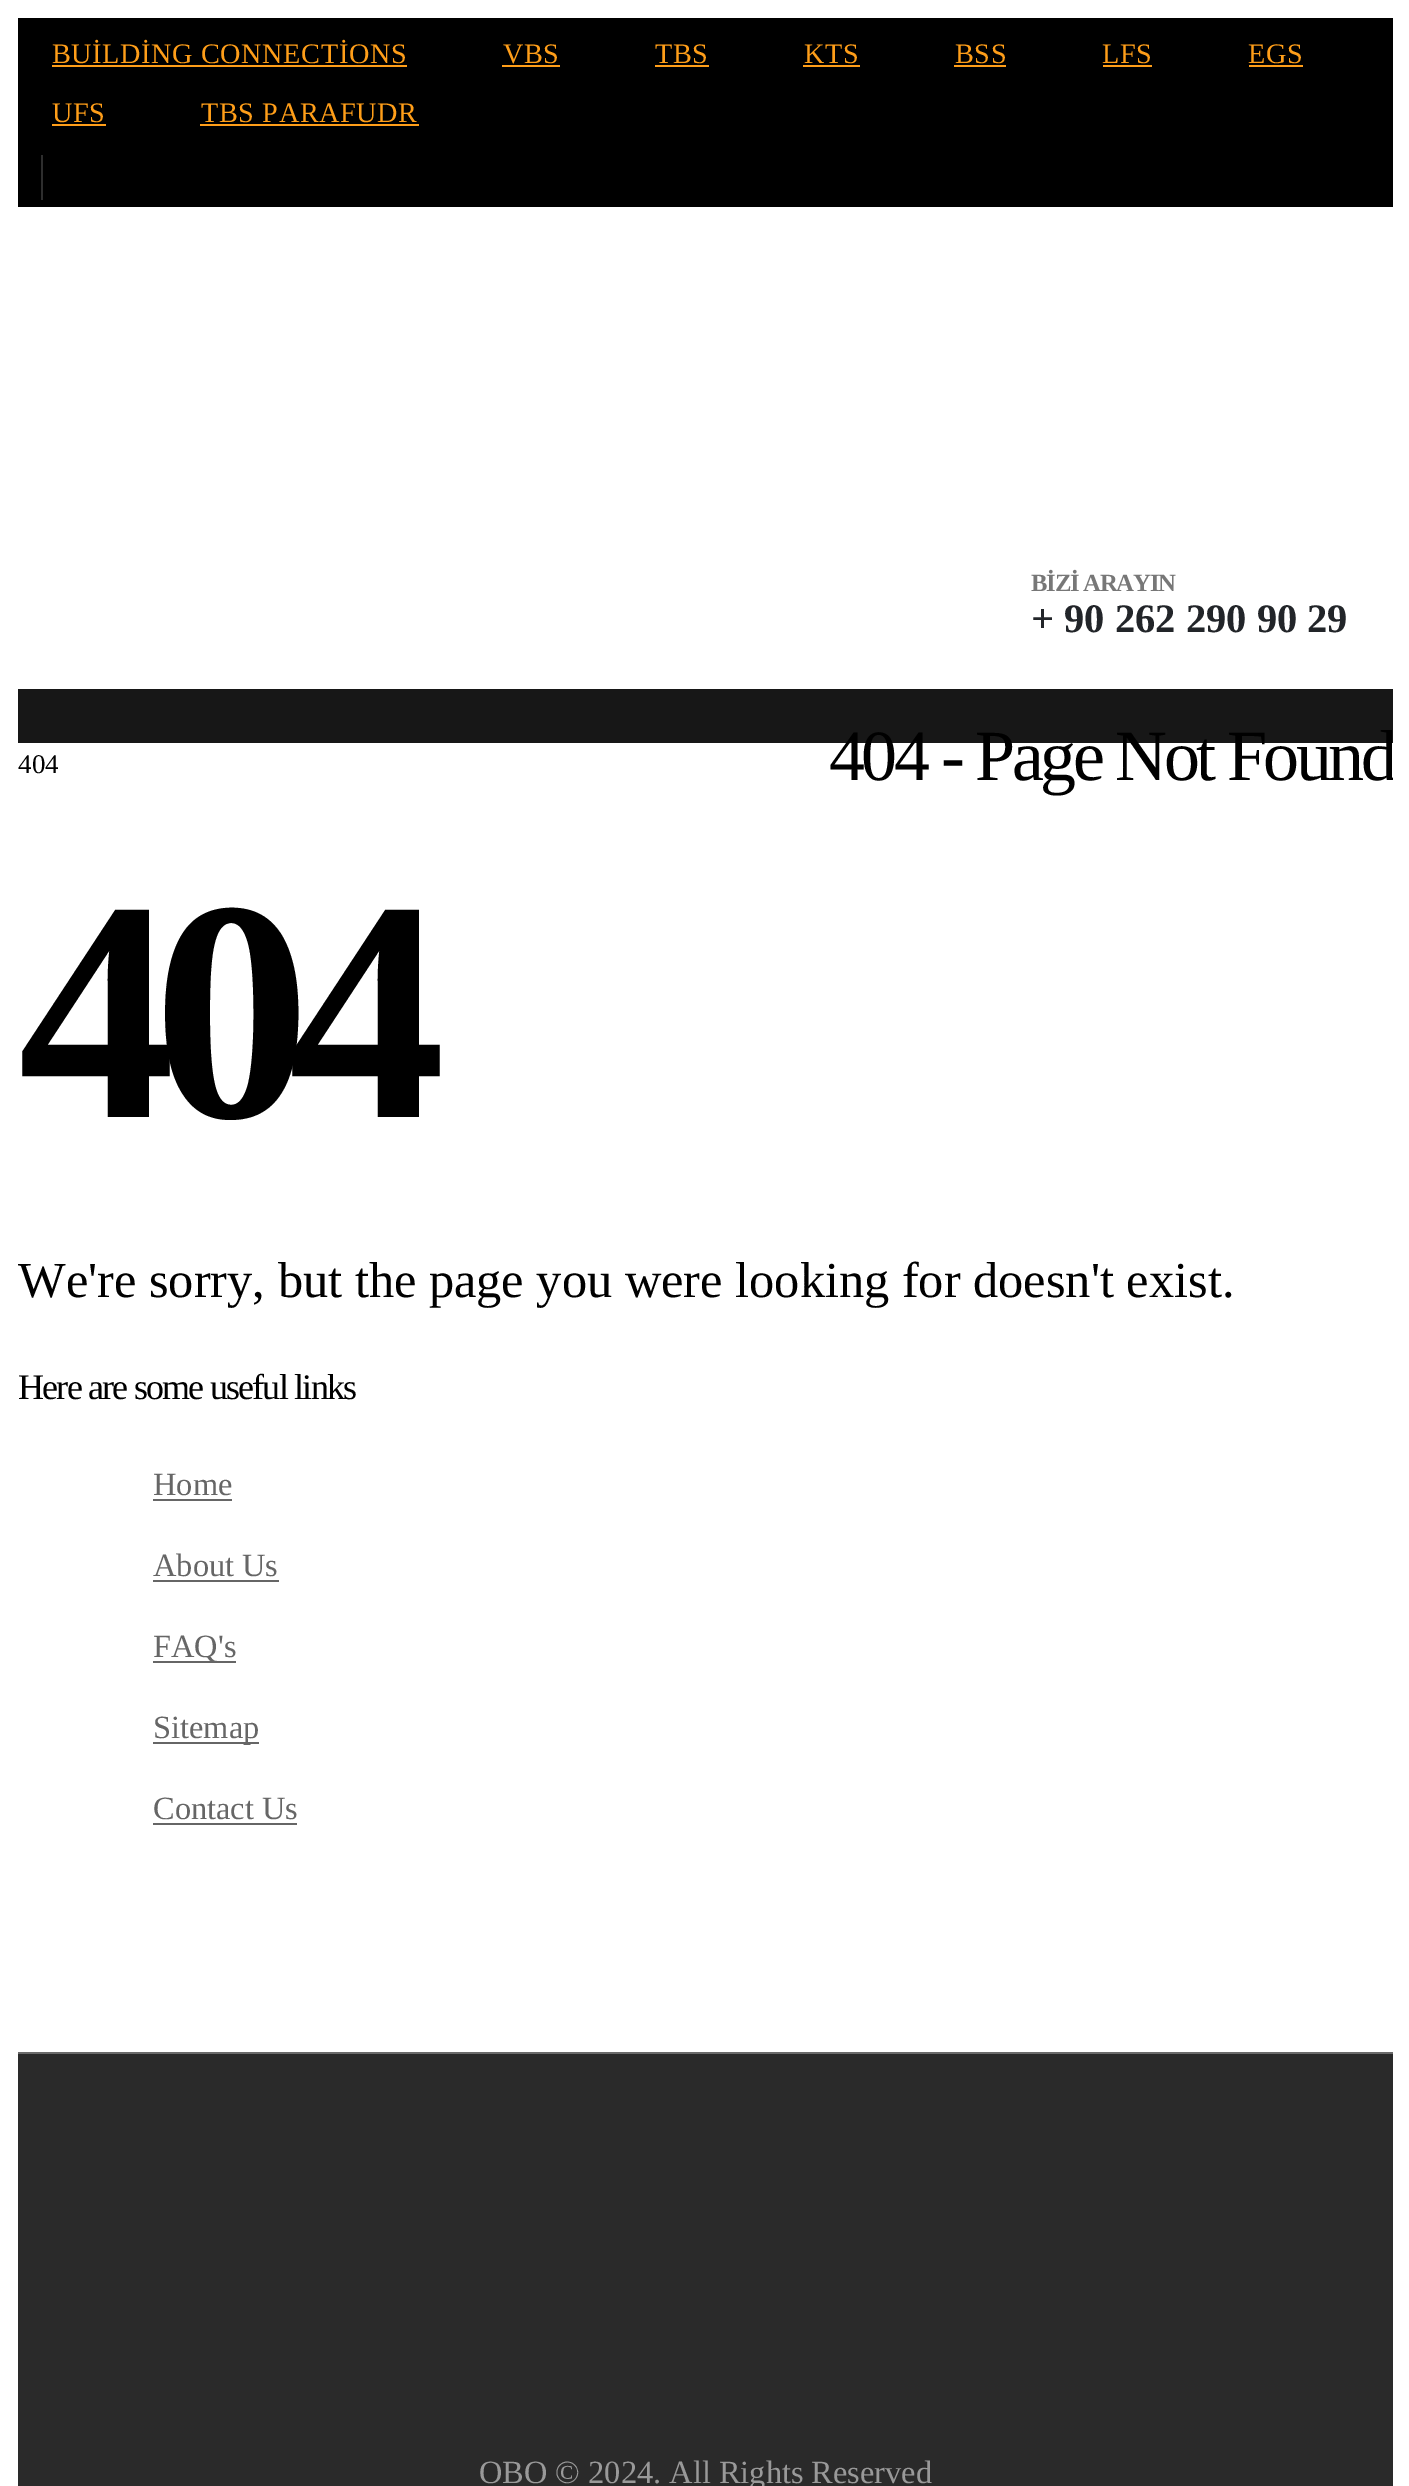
%!PS-Adobe-3.0
%%BoundingBox: 0 0 1409 2486
%%LanguageLevel: 3
%%Pages: 1
%%EndComments
%%BeginProlog
%%EndProlog
%%BeginSetup
<< /PageSize [1409 2486] >> setpagedevice
%%EndSetup
%%Page: 1 1
0 2486 translate 1 -1 scale
4 setmiterlimit
1 setgray
0 0 1409 2486 rectfill
0 setgray
18 18 1375 189 rectfill
1 0.62 0.098 setrgbcolor
52 65 355 2 rectfill
502 65 58 2 rectfill
655 65 54 2 rectfill
803 65 57 2 rectfill
954 65 52 2 rectfill
1103 65 49 2 rectfill
1249 65 54 2 rectfill
52 124 54 2 rectfill
200 124 219 2 rectfill
0.18 setgray
41 155 2 45 rectfill
0.09 setgray
18 689 1375 54 rectfill
0.4 setgray
153 1499 79 2 rectfill
153 1580 126 2 rectfill
153 1661 83 2 rectfill
153 1742 106 2 rectfill
153 1823 144 2 rectfill
0.165 setgray
18 2054 1375 432 rectfill
0.416 setgray
18 2052 1375 2 rectfill
/LiberationSerif-Regular [28.25 0 0 -28.25 0 0] selectfont
1 0.62 0.098 setrgbcolor
52 63 moveto 0.6 0 (BUİLDİNG CONNECTİONS) ashow
503 63 moveto 0.6 0 (VBS) ashow
655 63 moveto 0.6 0 (TBS) ashow
804 63 moveto 0.6 0 (KTS) ashow
955 63 moveto 0.6 0 (BSS) ashow
1102 63 moveto 0.6 0 (LFS) ashow
1248 63 moveto 0.6 0 (EGS) ashow
52 122 moveto 0.6 0 (UFS) ashow
201 122 moveto 0.6 0 (TBS PARAFUDR) ashow
/LiberationSerif-Bold [24.75 0 0 -24.75 0 0] selectfont
0.467 setgray
1031 591 moveto -1.25 0 (BİZİ ARAYIN) ashow
/LiberationSerif-Bold [40.5 0 0 -40.5 0 0] selectfont
0.133 0.145 0.161 setrgbcolor
1031 632 moveto (+ 90 262 290 90 29) show
/LiberationSerif-Regular [27 0 0 -27 0 0] selectfont
0 setgray
18 773 moveto (404) show
gsave
18 18 1375 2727 rectclip
/LiberationSerif-Regular [72 0 0 -72 0 0] selectfont
829 780 moveto -3.6 0 (404 - Page Not Found) ashow
grestore
/LiberationSerif-Bold [315 0 0 -315 0 0] selectfont
18 1117 moveto -22.5 0 (404) ashow
/LiberationSerif-Regular [50.4 0 0 -50.4 0 0] selectfont
18 1297 moveto (We're sorry, but the page you were looking for doesn't exist.) show
/LiberationSerif-Regular [36 0 0 -36 0 0] selectfont
18 1399 moveto -1.8 0 (Here are some useful links) ashow
/LiberationSerif-Regular [32.4 0 0 -32.4 0 0] selectfont
0.4 setgray
153 1495 moveto (Home) show
153 1576 moveto (About Us) show
153 1657 moveto (FAQ's) show
153 1738 moveto (Sitemap) show
153 1819 moveto (Contact Us) show
0.6 setgray
479 2483 moveto (OBO © 2024. All Rights Reserved) show
showpage
%%EOF
